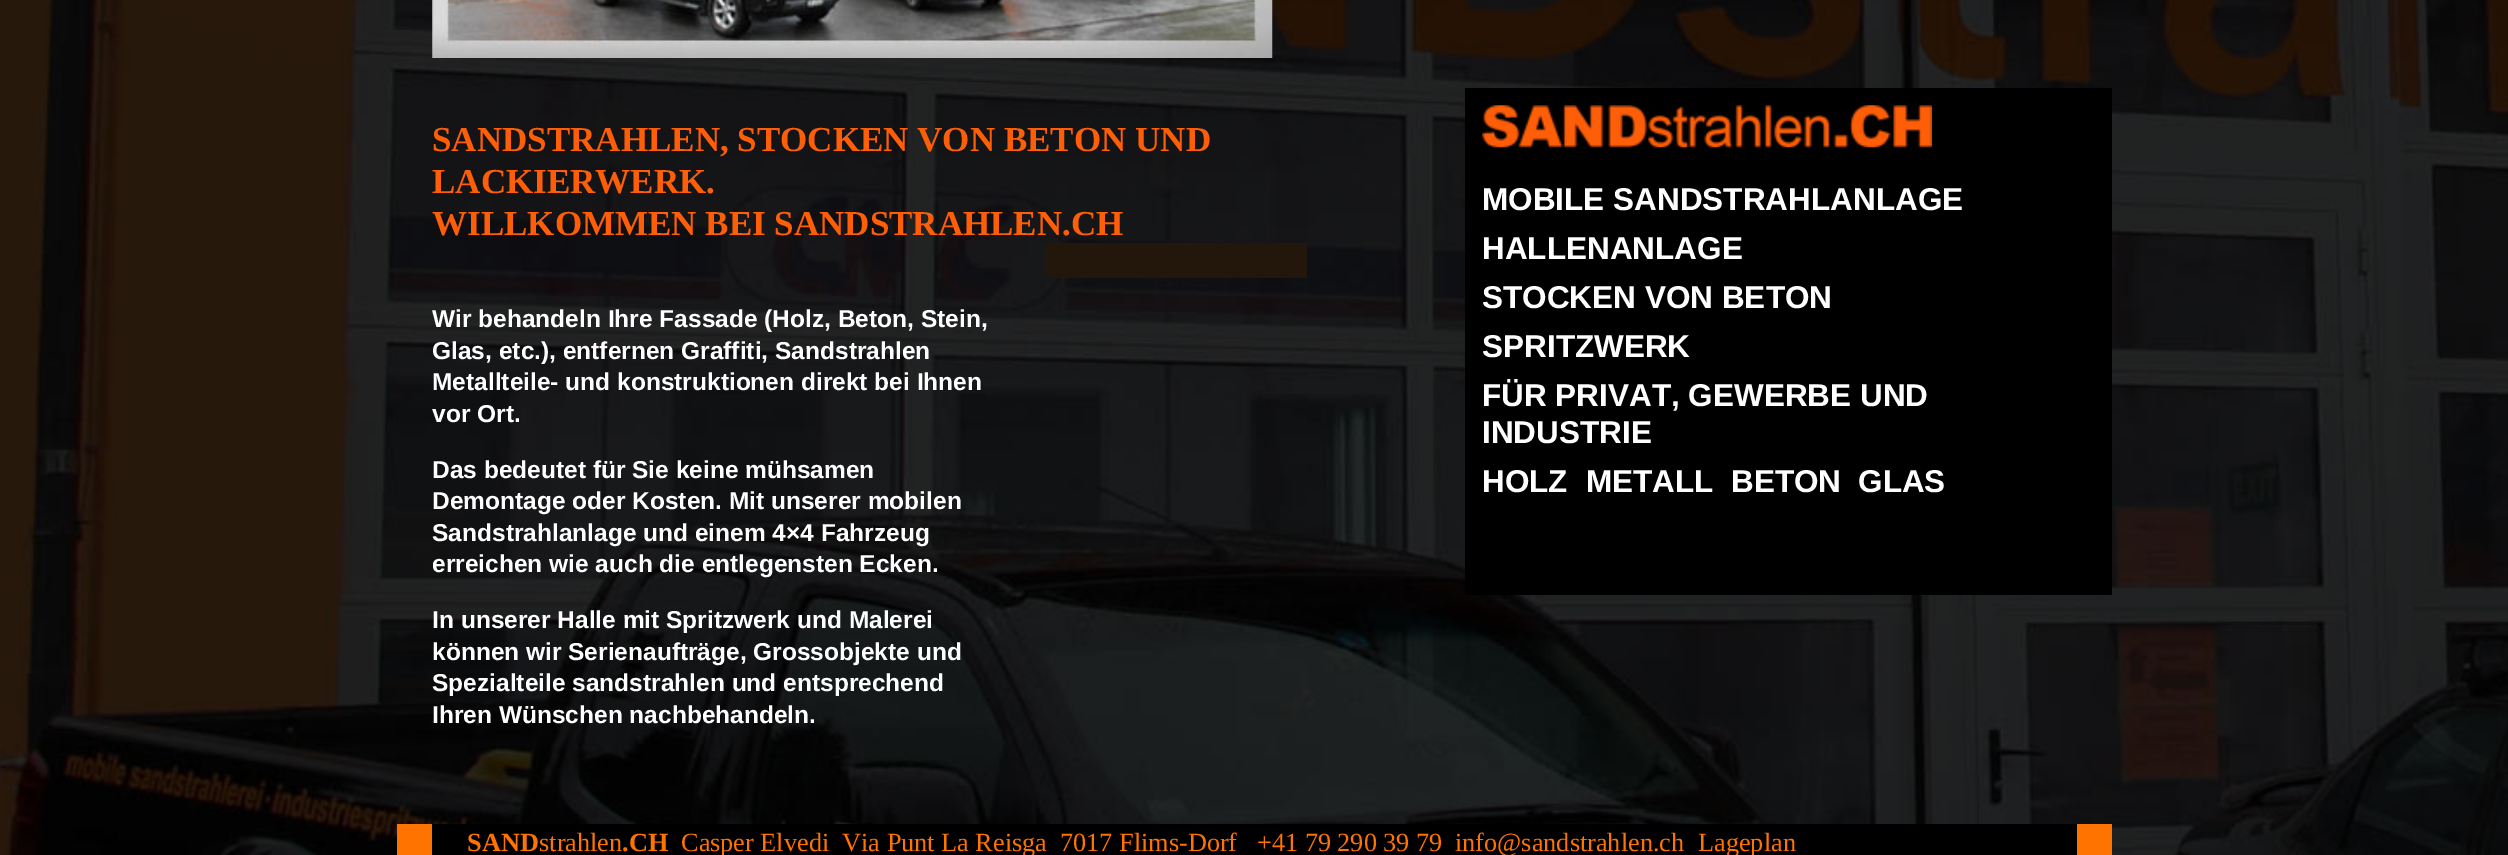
%!PS-Adobe-3.0
%%BoundingBox: 0 0 2508 855
%%LanguageLevel: 3
%%Pages: 1
%%EndComments
%%BeginProlog
/drawimage { 5 dict begin { /h /w /y /x /name } { exch def } forall
  gsave x y translate w h scale
  w h 8 [w 0 0 h 0 0] name (r) file false 3 colorimage grestore end } def
%%EndProlog
%%BeginSetup
<< /PageSize [2508 855] >> setpagedevice
%%EndSetup
%%Page: 1 1
0 855 translate 1 -1 scale
4 setmiterlimit
1 setgray
0 0 2508 855 rectfill
(images/1.raw) 0 0 2508 855 drawimage
(images/2.raw) 432 0 841 58 drawimage
0.137 0.086 0.039 setrgbcolor
1045 243 262 35 rectfill
0 setgray
1465 88 647 507 rectfill
(images/3.raw) 1482 105 450 43 drawimage
432 824 1645 31 rectfill
1 0.451 0 setrgbcolor
2077 824 35 31 rectfill
397 824 35 31 rectfill
/LiberationSerif-Bold [35 0 0 -35 0 0] selectfont
0.992 0.369 0.027 setrgbcolor
432 151 moveto (SANDSTRAHLEN, STOCKEN VON BETON UND) show
432 193 moveto (LACKIERWERK.) show
432 235 moveto (WILLKOMMEN BEI SANDSTRAHLEN.CH) show
/LiberationSans-Bold [24.5 0 0 -24.5 0 0] selectfont
1 setgray
432 327 moveto (Wir behandeln Ihre Fassade \(Holz, Beton, Stein,) show
432 359 moveto (Glas, etc.\), entfernen Graffiti, Sandstrahlen) show
432 390 moveto (Metallteile- und konstruktionen direkt bei Ihnen) show
432 422 moveto (vor Ort.) show
432 478 moveto (Das bedeutet für Sie keine mühsamen) show
432 509 moveto (Demontage oder Kosten. Mit unserer mobilen) show
432 541 moveto (Sandstrahlanlage und einem 4×4 Fahrzeug) show
432 572 moveto (erreichen wie auch die entlegensten Ecken.) show
432 628 moveto (In unserer Halle mit Spritzwerk und Malerei) show
432 660 moveto (können wir Serienaufträge, Grossobjekte und) show
432 691 moveto (Spezialteile sandstrahlen und entsprechend) show
432 723 moveto (Ihren Wünschen nachbehandeln.) show
/LiberationSans-Bold [31.5 0 0 -31.5 0 0] selectfont
1482 210 moveto (MOBILE SANDSTRAHLANLAGE) show
1482 259 moveto (HALLENANLAGE) show
1482 308 moveto (STOCKEN VON BETON) show
1482 357 moveto (SPRITZWERK) show
1482 406 moveto (FÜR PRIVAT, GEWERBE UND) show
1482 443 moveto (INDUSTRIE) show
1482 492 moveto (HOLZ) show
1586 492 moveto (METALL) show
1731 492 moveto (BETON) show
1858 492 moveto (GLAS) show
/LiberationSerif-Bold [26.25 0 0 -26.25 0 0] selectfont
1 0.451 0 setrgbcolor
467 851 moveto (SAND) show
/LiberationSerif-Regular [26.25 0 0 -26.25 0 0] selectfont
539 851 moveto (strahlen) show
/LiberationSerif-Bold [26.25 0 0 -26.25 0 0] selectfont
622 851 moveto (.CH) show
/LiberationSerif-Regular [26.25 0 0 -26.25 0 0] selectfont
681 851 moveto (Casper Elvedi  Via Punt La Reisga  7017 Flims-Dorf   +41 79 290 39 79) show
1455 851 moveto (info@sandstrahlen.ch) show
1698 851 moveto (Lageplan) show
showpage
%%EOF
